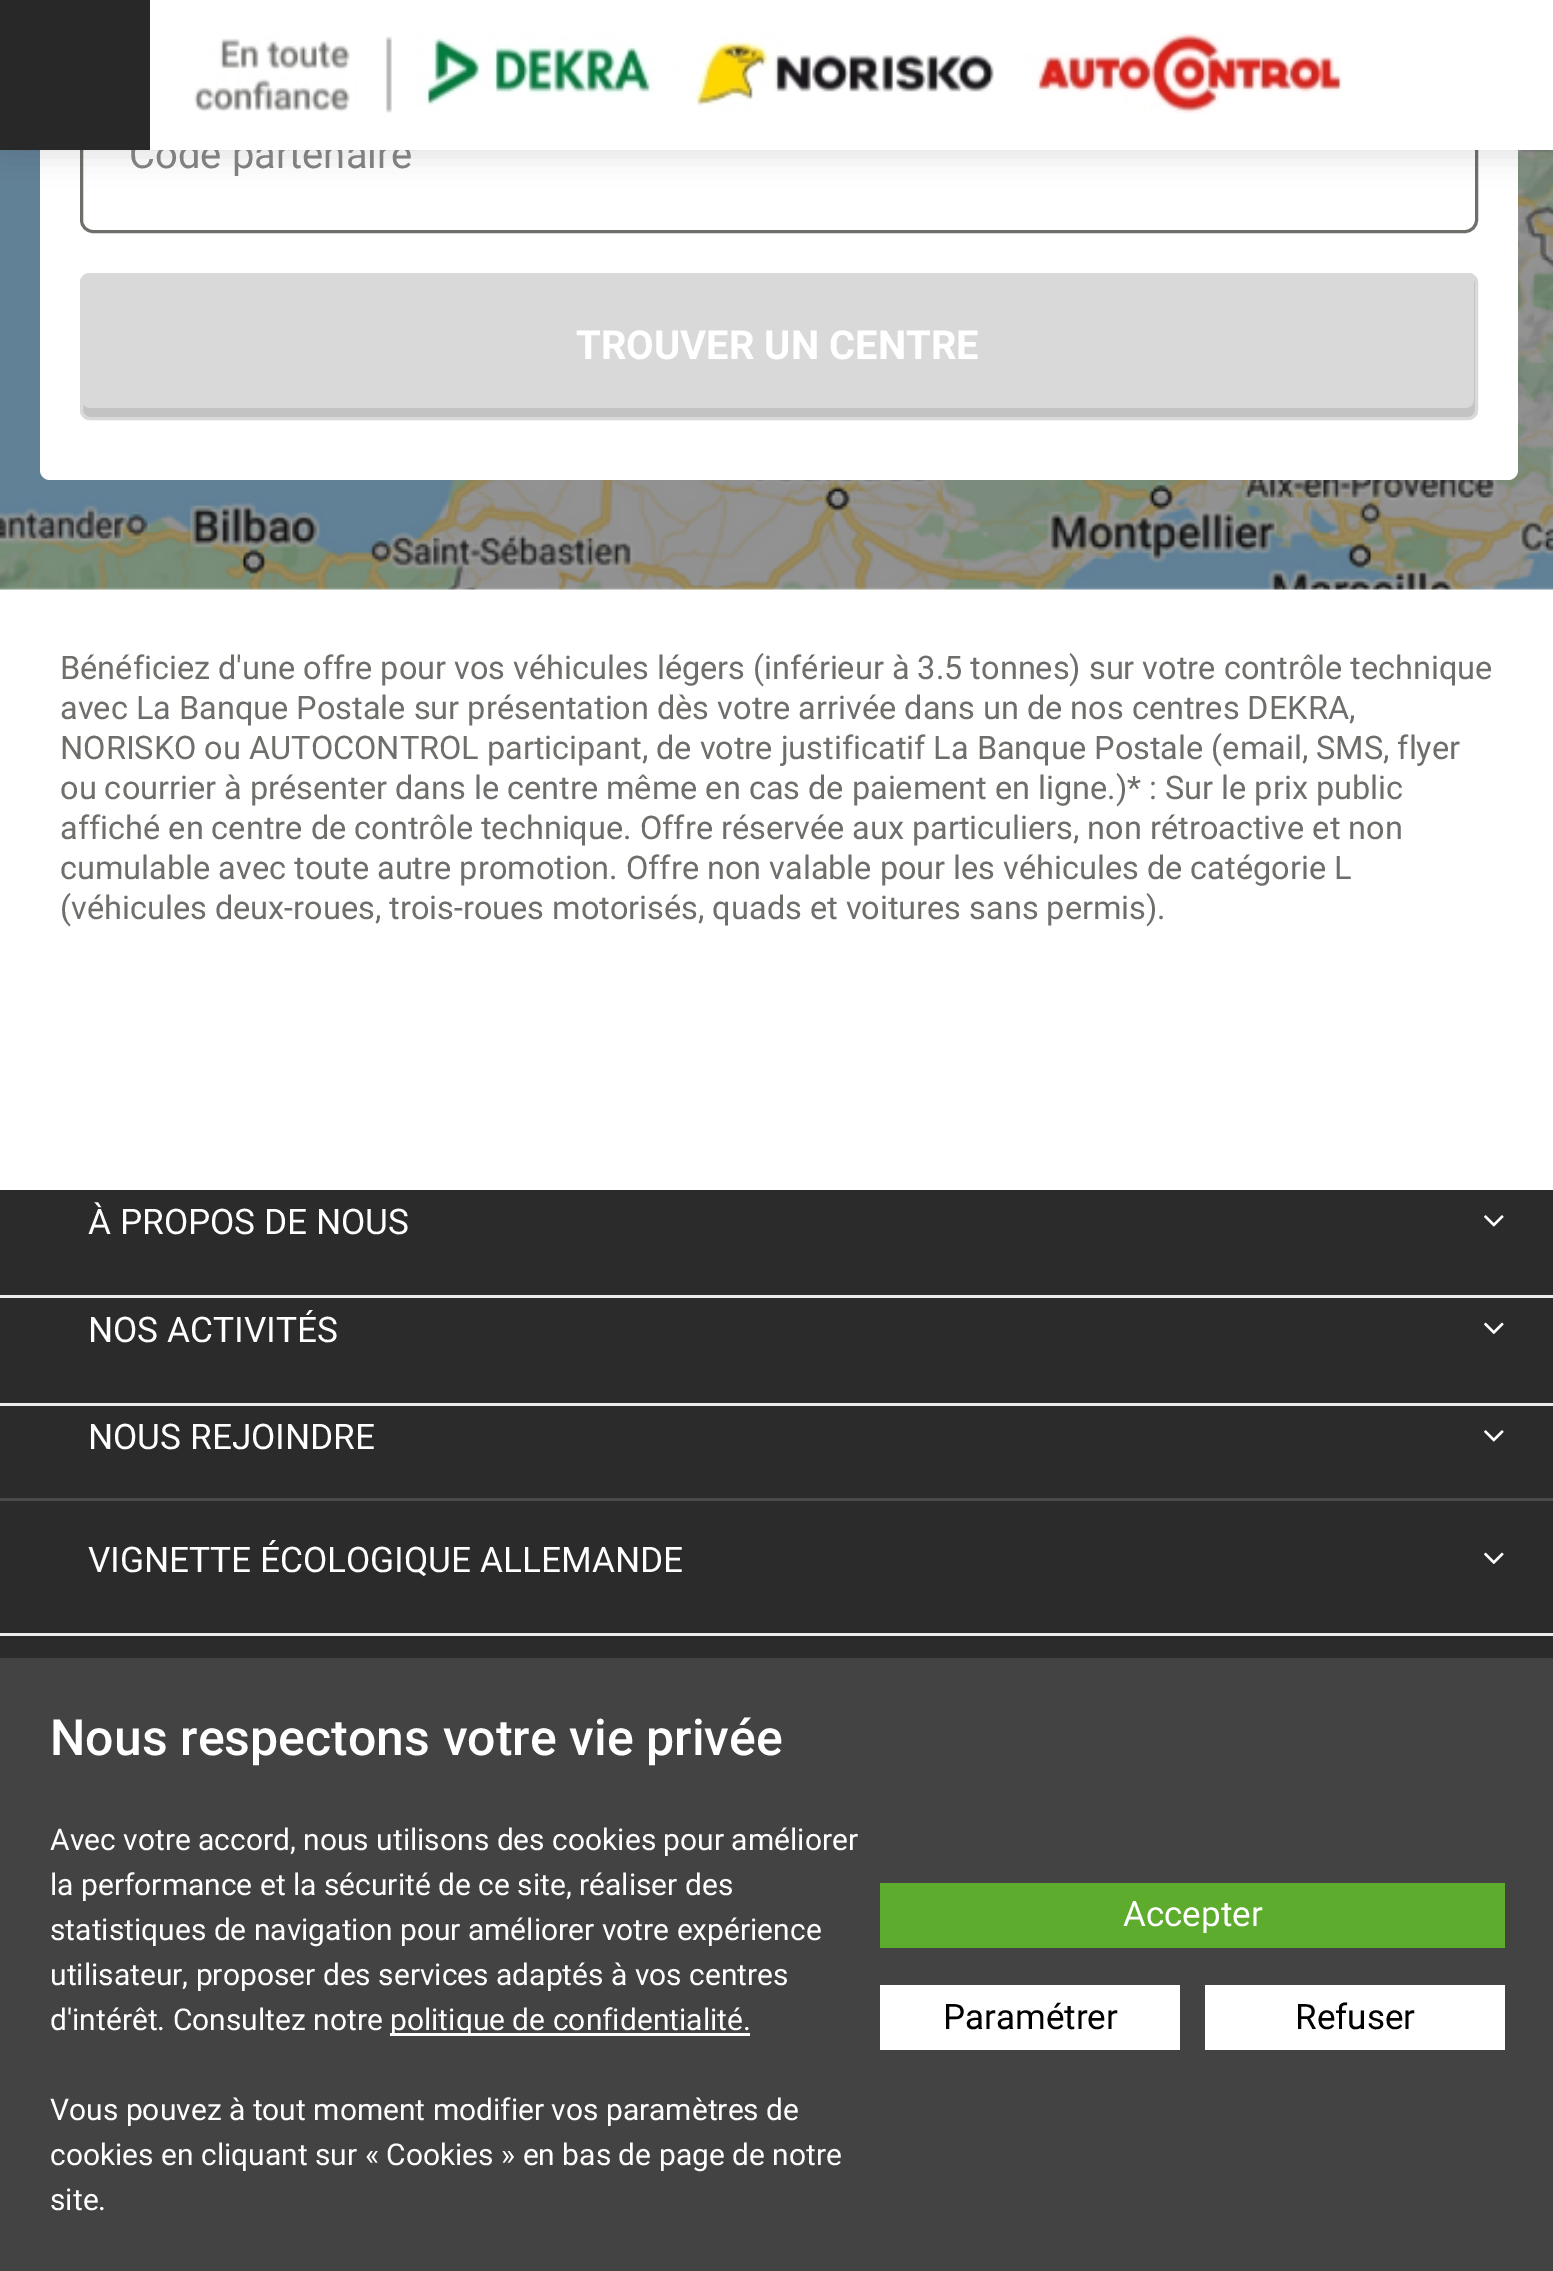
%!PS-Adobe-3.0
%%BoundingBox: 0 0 1553 2271
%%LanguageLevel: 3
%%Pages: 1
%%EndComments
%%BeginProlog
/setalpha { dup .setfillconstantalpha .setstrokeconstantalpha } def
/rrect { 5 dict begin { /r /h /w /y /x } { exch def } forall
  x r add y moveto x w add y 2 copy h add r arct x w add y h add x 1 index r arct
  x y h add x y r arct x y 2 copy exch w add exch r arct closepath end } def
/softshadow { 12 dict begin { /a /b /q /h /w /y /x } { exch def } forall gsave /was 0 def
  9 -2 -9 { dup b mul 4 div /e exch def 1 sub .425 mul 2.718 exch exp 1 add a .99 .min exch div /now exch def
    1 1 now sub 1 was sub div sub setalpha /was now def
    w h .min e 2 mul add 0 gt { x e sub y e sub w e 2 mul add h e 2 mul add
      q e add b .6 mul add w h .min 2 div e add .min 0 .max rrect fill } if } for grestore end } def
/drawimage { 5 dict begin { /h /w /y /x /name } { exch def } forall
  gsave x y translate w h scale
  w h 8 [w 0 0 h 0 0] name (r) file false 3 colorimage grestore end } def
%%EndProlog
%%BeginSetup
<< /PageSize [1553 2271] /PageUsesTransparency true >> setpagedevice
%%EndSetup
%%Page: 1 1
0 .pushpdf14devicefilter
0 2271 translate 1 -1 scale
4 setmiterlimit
0.169 setgray
0 0 1553 2271 rectfill
1 setgray
0 589 1553 601 rectfill
(images/2.raw) 0 150 1553 440 drawimage
40 -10 1478 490 10 rrect fill
0.435 0.431 0.42 setrgbcolor
3 setlinewidth
81.5 79.5 1395 152 11.5 rrect stroke
0.157 setgray
0 5 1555 150 0 15 0.15 softshadow
0.851 setgray
80 273 1398 147 10 rrect fill
0.765 setgray
newpath 83 405 moveto 83 410 lineto 83 414 87 418 91 418 curveto 1467 418 lineto 1471 418 1475 414 1475 410 curveto 1475 283 lineto 1475 282 1475 280 1474 279 curveto 1474 400 lineto 1474 404 1471 408 1466 408 curveto 89 408 lineto 87 408 85 407 83 405 curveto closepath fill
0.851 setgray
81.5 274.5 1395 144 8.5 rrect stroke
0.925 setgray
0 1295 1553 3 rectfill
(images/3.raw) 1484 1215 20 12 drawimage
0 1403 1553 3 rectfill
(images/4.raw) 1484 1322 20 12 drawimage
0 1633 1553 3 rectfill
(images/3.raw) 1484 1430 20 12 drawimage
0.294 setgray
0 1498 1553 3 rectfill
(images/4.raw) 1484 1552 20 12 drawimage
0.263 setgray
0 1658 1553 613 rectfill
1 setgray
390 2033 360 3 rectfill
0.365 0.675 0.18 setrgbcolor
880 1883 625 65 rectfill
1 setgray
880 1985 300 65 rectfill
1205 1985 300 65 rectfill
/Roboto-Regular [40 0 0 -40 0 0] selectfont
0.502 setgray
129 168 moveto (Code partenaire) show
1 setgray
150 0 1403 150 rectfill
(images/1.raw) 194 33 1148 81 drawimage
0.157 setgray
0 0 150 150 rectfill
/Roboto-Bold [40 0 0 -40 0 0] selectfont
1 setgray
576 359 moveto (TROUVER UN CENTRE) show
/Roboto-Regular [32.5 0 0 -32.5 0 0] selectfont
0.435 0.431 0.42 setrgbcolor
60 679 moveto (Bénéficiez d'une offre pour vos véhicules légers \(inférieur à 3.5 tonnes\) sur votre contrôle technique) show
60 719 moveto (avec La Banque Postale sur présentation dès votre arrivée dans un de nos centres DEKRA,) show
60 759 moveto (NORISKO ou AUTOCONTROL participant, de votre justificatif La Banque Postale \(email, SMS, flyer) show
60 799 moveto (ou courrier à présenter dans le centre même en cas de paiement en ligne.\)* : Sur le prix public) show
60 839 moveto (affiché en centre de contrôle technique. Offre réservée aux particuliers, non rétroactive et non) show
60 879 moveto (cumulable avec toute autre promotion. Offre non valable pour les véhicules de catégorie L) show
60 919 moveto (\(véhicules deux-roues, trois-roues motorisés, quads et voitures sans permis\).) show
/Roboto-Regular [35.25 0 0 -35.25 0 0] selectfont
1 setgray
88 1234 moveto (À PROPOS DE NOUS) show
88 1342 moveto (NOS ACTIVITÉS) show
88 1449 moveto (NOUS REJOINDRE) show
88 1572 moveto (VIGNETTE ÉCOLOGIQUE ALLEMANDE) show
/Roboto-Medium [50 0 0 -50 0 0] selectfont
50 1755 moveto (Nous respectons votre vie privée) show
/Roboto-Regular [30 0 0 -30 0 0] selectfont
50 1850 moveto (Avec votre accord, nous utilisons des cookies pour améliorer) show
50 1895 moveto (la performance et la sécurité de ce site, réaliser des) show
50 1940 moveto (statistiques de navigation pour améliorer votre expérience) show
50 1985 moveto (utilisateur, proposer des services adaptés à vos centres) show
50 2030 moveto (d'intérêt. Consultez notre) show
390 2030 moveto (politique de confidentialité.) show
50 2120 moveto (Vous pouvez à tout moment modifier vos paramètres de) show
50 2165 moveto (cookies en cliquant sur « Cookies » en bas de page de notre) show
50 2210 moveto (site.) show
/Roboto-Regular [35 0 0 -35 0 0] selectfont
1123 1926 moveto (Accepter) show
0 setgray
943 2029 moveto (Paramétrer) show
1295 2029 moveto (Refuser) show
.poppdf14devicefilter showpage
%%EOF
